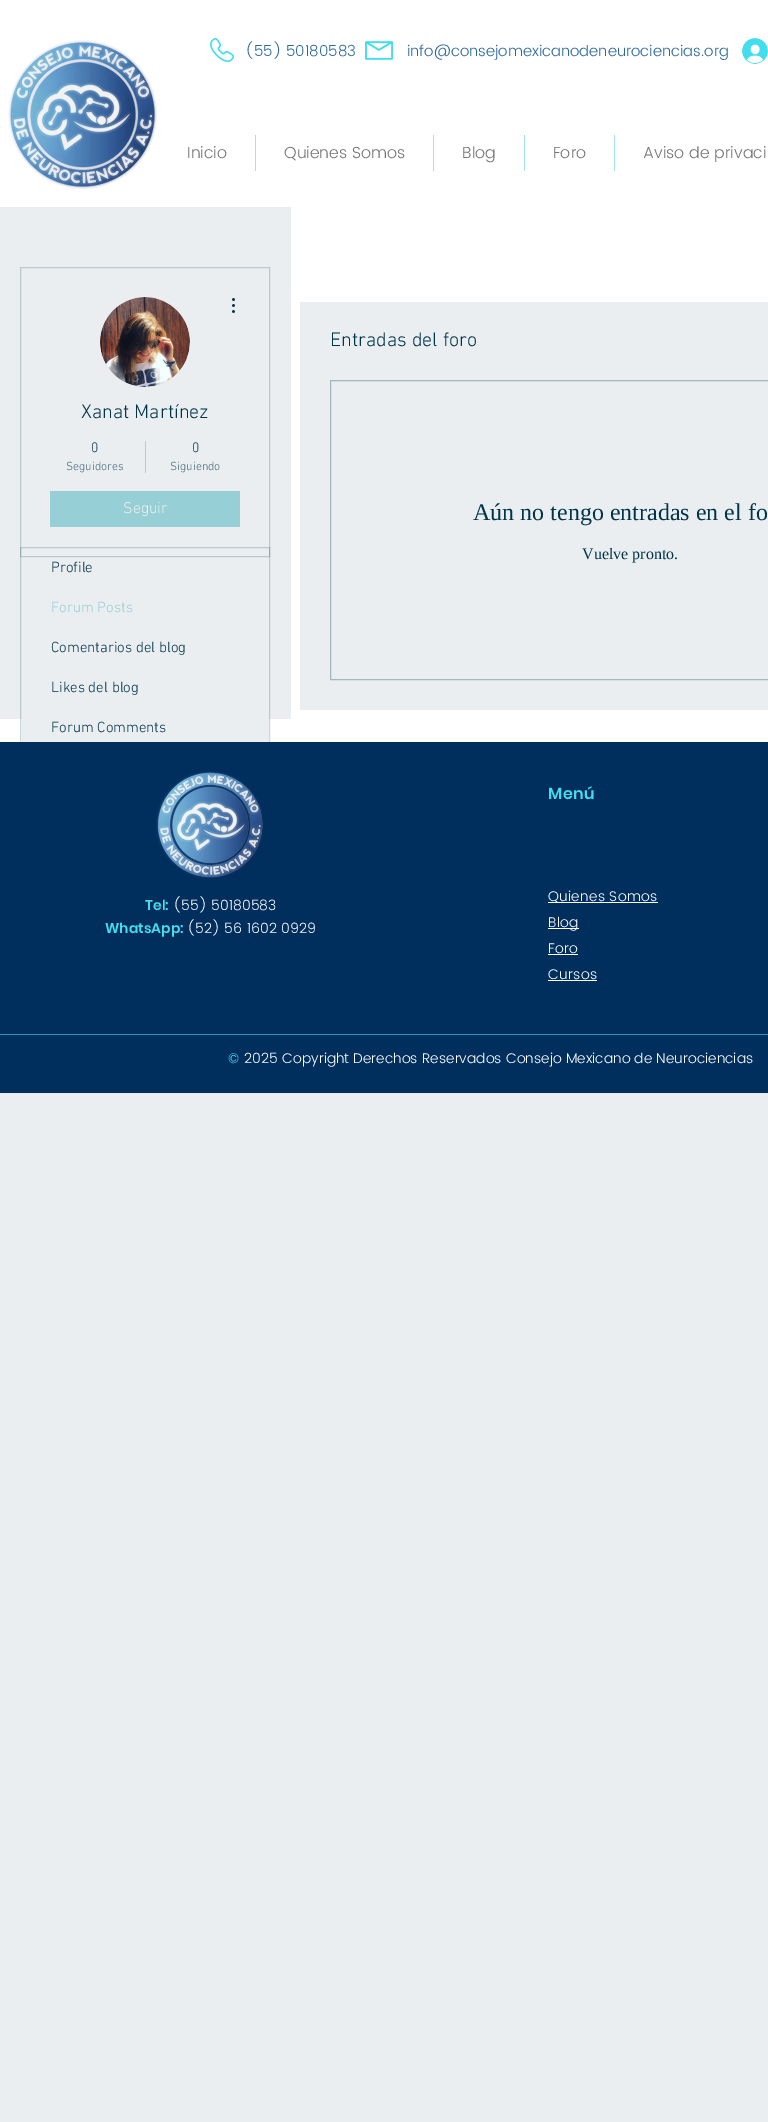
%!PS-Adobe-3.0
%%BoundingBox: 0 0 768 2122
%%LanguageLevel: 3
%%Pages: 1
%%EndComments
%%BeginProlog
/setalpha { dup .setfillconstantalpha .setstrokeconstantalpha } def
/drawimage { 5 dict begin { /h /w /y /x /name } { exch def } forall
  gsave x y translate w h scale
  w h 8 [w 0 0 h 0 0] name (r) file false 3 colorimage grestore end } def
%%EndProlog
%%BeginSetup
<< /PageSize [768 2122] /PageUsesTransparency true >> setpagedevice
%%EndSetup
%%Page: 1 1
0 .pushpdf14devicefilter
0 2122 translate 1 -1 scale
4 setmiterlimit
0.918 0.933 0.941 setrgbcolor
0 0 768 2122 rectfill
1 setgray
0 0 768 742 rectfill
(images/1.raw) 8 40 149 149 drawimage
(images/2.raw) 210 38 24 24 drawimage
(images/3.raw) 365 41 28 19 drawimage
(images/4.raw) 742 38 26 26 drawimage
0.631 0.878 0.961 setrgbcolor
255 135 1 36 rectfill
433 135 1 36 rectfill
524 135 1 36 rectfill
614 135 1 36 rectfill
0.918 0.933 0.941 setrgbcolor
0 207 291 512 rectfill
0.2 setalpha
0 0.204 0.286 setrgbcolor
20.5 547.5 249 201 rectstroke
20.5 267.5 249 289 rectstroke
1 setalpha
0.847 setgray
newpath 145 342 45 0 360 arc closepath fill
(images/5.raw) 100 297 90 90 drawimage
(images/6.raw) 232 298 3 15 drawimage
0.733 0.788 0.812 setrgbcolor
145 441 1 32 rectfill
0.588 0.812 0.835 setrgbcolor
50 491 190 36 rectfill
0.918 0.933 0.941 setrgbcolor
21 719 248 23 rectfill
300 302 468 408 rectfill
0.643 0.714 0.745 setrgbcolor
330.5 380.5 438 299 rectstroke
0 0.18 0.365 setrgbcolor
0 742 768 351 rectfill
(images/7.raw) 156 771 108 107 drawimage
1 setgray
548 902 110 1 rectfill
548 928 31 1 rectfill
548 954 30 1 rectfill
548 980 49 1 rectfill
0.157 0.592 0.702 setrgbcolor
0 1034 768 1 rectfill
/Poppins-Light [15 0 0 -15 0 0] selectfont
0.169 0.408 0.612 setrgbcolor
245 56 moveto (\(55\) 50180583) show
407 56 moveto (info@consejomexicanodeneurociencias.org) show
/Poppins-Light [16 0 0 -16 0 0] selectfont
0.451 setgray
187 158 moveto (Inicio) show
284 158 moveto (Quienes Somos) show
462 158 moveto (Blog) show
553 158 moveto (Foro) show
643 158 moveto (Aviso de privaci) show
/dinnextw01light-Light [20 0 0 -20 0 0] selectfont
0 0.204 0.286 setrgbcolor
81 418 moveto (Xanat Martínez) show
/dinnextw01light-Light [14 0 0 -14 0 0] selectfont
91 452 moveto (0) show
/dinnextw01light-Light [12 0 0 -12 0 0] selectfont
0.275 0.424 0.482 setrgbcolor
66 470 moveto (Seguidores) show
/dinnextw01light-Light [14 0 0 -14 0 0] selectfont
0 0.204 0.286 setrgbcolor
192 452 moveto (0) show
/dinnextw01light-Light [12 0 0 -12 0 0] selectfont
0.275 0.424 0.482 setrgbcolor
170 470 moveto (Siguiendo) show
/dinnextw01light-Light [16 0 0 -16 0 0] selectfont
0.918 0.933 0.941 setrgbcolor
123 513 moveto (Seguir) show
/dinnextw01light-Light [15 0 0 -15 0 0] selectfont
0 0.204 0.286 setrgbcolor
51 572 moveto (Profile) show
0.588 0.812 0.835 setrgbcolor
51 612 moveto (Forum Posts) show
0 0.204 0.286 setrgbcolor
51 652 moveto (Comentarios del blog) show
51 692 moveto (Likes del blog) show
51 732 moveto (Forum Comments) show
/dinnextw01light-Light [20 0 0 -20 0 0] selectfont
330 346 moveto (Entradas del foro) show
/LiberationSerif-Regular [24 0 0 -24 0 0] selectfont
473 520 moveto (Aún no tengo entradas en el fo) show
/LiberationSerif-Regular [16 0 0 -16 0 0] selectfont
582 559 moveto (Vuelve pronto.) show
/Poppins-SemiBold [16 0 0 -16 0 0] selectfont
0.263 0.867 0.929 setrgbcolor
548 799 moveto 0.5 0 (Menú) ashow
/Poppins-SemiBold [14 0 0 -14 0 0] selectfont
145 910 moveto (Tel:) show
/Poppins-Light [14 0 0 -14 0 0] selectfont
1 setgray
173 910 moveto (\(55\) 50180583) show
/Poppins-SemiBold [14 0 0 -14 0 0] selectfont
0.263 0.867 0.929 setrgbcolor
105 933 moveto (WhatsApp:) show
/Poppins-Light [14 0 0 -14 0 0] selectfont
1 setgray
187 933 moveto (\(52\) 56 1602 0929) show
548 901 moveto 0.25 0 (Quienes Somos) ashow
548 927 moveto 0.25 0 (Blog) ashow
548 953 moveto 0.25 0 (Foro) ashow
548 979 moveto 0.25 0 (Cursos) ashow
0.263 0.867 0.929 setrgbcolor
228 1063 moveto (©) show
1 setgray
244 1063 moveto (2025 Copyright Derechos Reservados Consejo Mexicano de Neurociencias) show
.poppdf14devicefilter showpage
%%EOF
